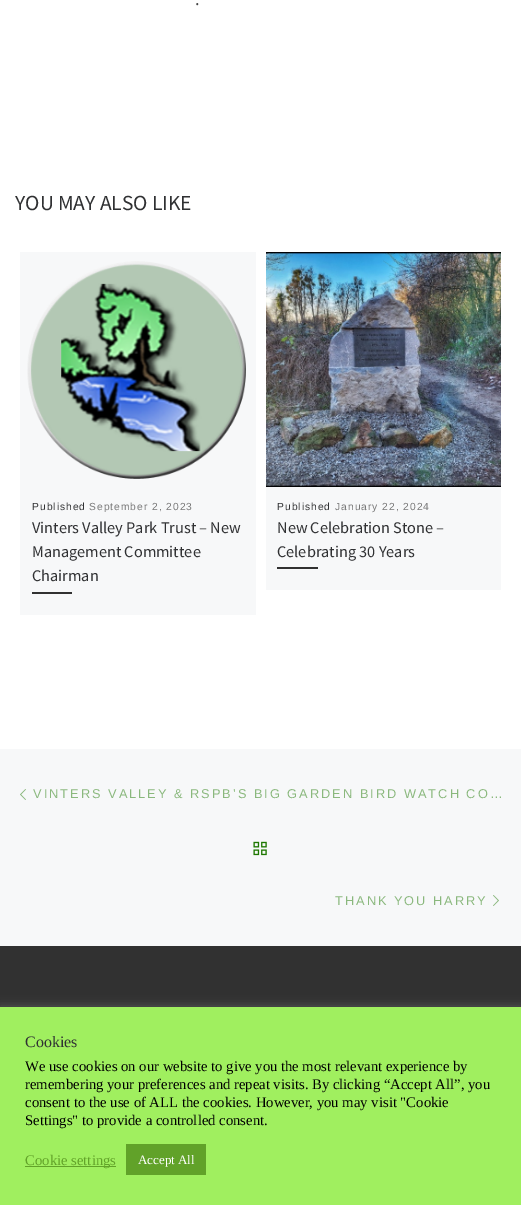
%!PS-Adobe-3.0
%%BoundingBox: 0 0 521 1205
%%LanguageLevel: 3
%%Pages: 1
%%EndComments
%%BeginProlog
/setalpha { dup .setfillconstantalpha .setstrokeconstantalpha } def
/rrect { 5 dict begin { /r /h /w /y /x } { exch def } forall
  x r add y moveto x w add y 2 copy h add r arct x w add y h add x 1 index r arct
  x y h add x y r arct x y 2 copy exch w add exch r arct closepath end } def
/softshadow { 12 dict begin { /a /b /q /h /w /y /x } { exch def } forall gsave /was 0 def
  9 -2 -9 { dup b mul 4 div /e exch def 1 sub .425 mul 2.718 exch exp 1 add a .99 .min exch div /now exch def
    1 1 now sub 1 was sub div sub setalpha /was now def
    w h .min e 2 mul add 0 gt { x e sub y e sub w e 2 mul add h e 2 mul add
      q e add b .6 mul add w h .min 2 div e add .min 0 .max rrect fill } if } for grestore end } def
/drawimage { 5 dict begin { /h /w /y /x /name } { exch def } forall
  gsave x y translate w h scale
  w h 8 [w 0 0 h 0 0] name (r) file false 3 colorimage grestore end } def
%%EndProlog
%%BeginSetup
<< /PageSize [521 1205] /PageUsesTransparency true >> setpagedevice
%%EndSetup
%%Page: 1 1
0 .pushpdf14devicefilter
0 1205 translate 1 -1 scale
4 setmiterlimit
1 setgray
0 0 521 1205 rectfill
0.969 0.973 0.976 setrgbcolor
20 252 236 363 rectfill
(images/1.raw) 27 261 219 218 drawimage
0.192 setgray
32 592 40 2 rectfill
0.969 0.973 0.976 setrgbcolor
266 487 235 103 rectfill
(images/2.raw) 266 252 235 235 drawimage
0.192 setgray
277 567 41 2 rectfill
0.969 0.973 0.976 setrgbcolor
0 749 521 197 rectfill
(images/3.raw) 20 789 6 11 drawimage
(images/4.raw) 253 841 14 15 drawimage
(images/5.raw) 493 895 6 11 drawimage
0.192 setgray
0 946 521 61 rectfill
0.675 0.671 0.671 setrgbcolor
0 1006 521 198 0 5 0.3 softshadow
0.627 0.937 0.373 setrgbcolor
0 1007 521 198 rectfill
0.384 0.639 0.161 setrgbcolor
25 1166 91 1 rectfill
0.38 0.635 0.161 setrgbcolor
126 1144 80 31 rectfill
/SourceSansPro-Regular [18 0 0 -18 0 0] selectfont
0.267 setgray
195 5 moveto (.) show
/SourceSansPro-Regular [21.5 0 0 -21.5 0 0] selectfont
0.188 0.192 0.2 setrgbcolor
15 210 moveto (YOU MAY ALSO LIKE) show
/LiberationSans-Regular [10.25 0 0 -10.25 0 0] selectfont
32 510 moveto 1 0 (Published) ashow
0.467 setgray
89 510 moveto 1 0 (September 2, 2023) ashow
/SourceSansPro-Regular [16.25 0 0 -16.25 0 0] selectfont
0.188 0.192 0.2 setrgbcolor
32 533 moveto (Vinters Valley Park Trust – New) show
32 557 moveto (Management Committee) show
32 581 moveto (Chairman) show
/LiberationSans-Regular [10.25 0 0 -10.25 0 0] selectfont
277 510 moveto 1 0 (Published) ashow
0.467 setgray
335 510 moveto 1 0 (January 22, 2024) ashow
/SourceSansPro-Regular [16.25 0 0 -16.25 0 0] selectfont
0.188 0.192 0.2 setrgbcolor
277 533 moveto (New Celebration Stone –) show
277 557 moveto (Celebrating 30 Years) show
/LiberationSans-Regular [12.8 0 0 -12.8 0 0] selectfont
0.541 0.722 0.49 setrgbcolor
33 798 moveto 2 0 (VINTERS VALLEY & RSPB’S BIG GARDEN BIRD WATCH CO…) ashow
335 905 moveto 2 0 (THANK YOU HARRY) ashow
/LiberationSerif-Regular [16 0 0 -16 0 0] selectfont
0.188 0.192 0.2 setrgbcolor
25 1047 moveto (Cookies) show
/LiberationSerif-Regular [14.7 0 0 -14.7 0 0] selectfont
0 setgray
25 1071 moveto (We use cookies on our website to give you the most relevant experience by) show
25 1089 moveto (remembering your preferences and repeat visits. By clicking “Accept All”, you) show
25 1107 moveto (consent to the use of ALL the cookies. However, you may visit "Cookie) show
25 1125 moveto (Settings" to provide a controlled consent.) show
0.384 0.639 0.161 setrgbcolor
25 1165 moveto (Cookie settings) show
/LiberationSerif-Regular [13 0 0 -13 0 0] selectfont
1 setgray
138 1164 moveto (Accept All) show
.poppdf14devicefilter showpage
%%EOF
